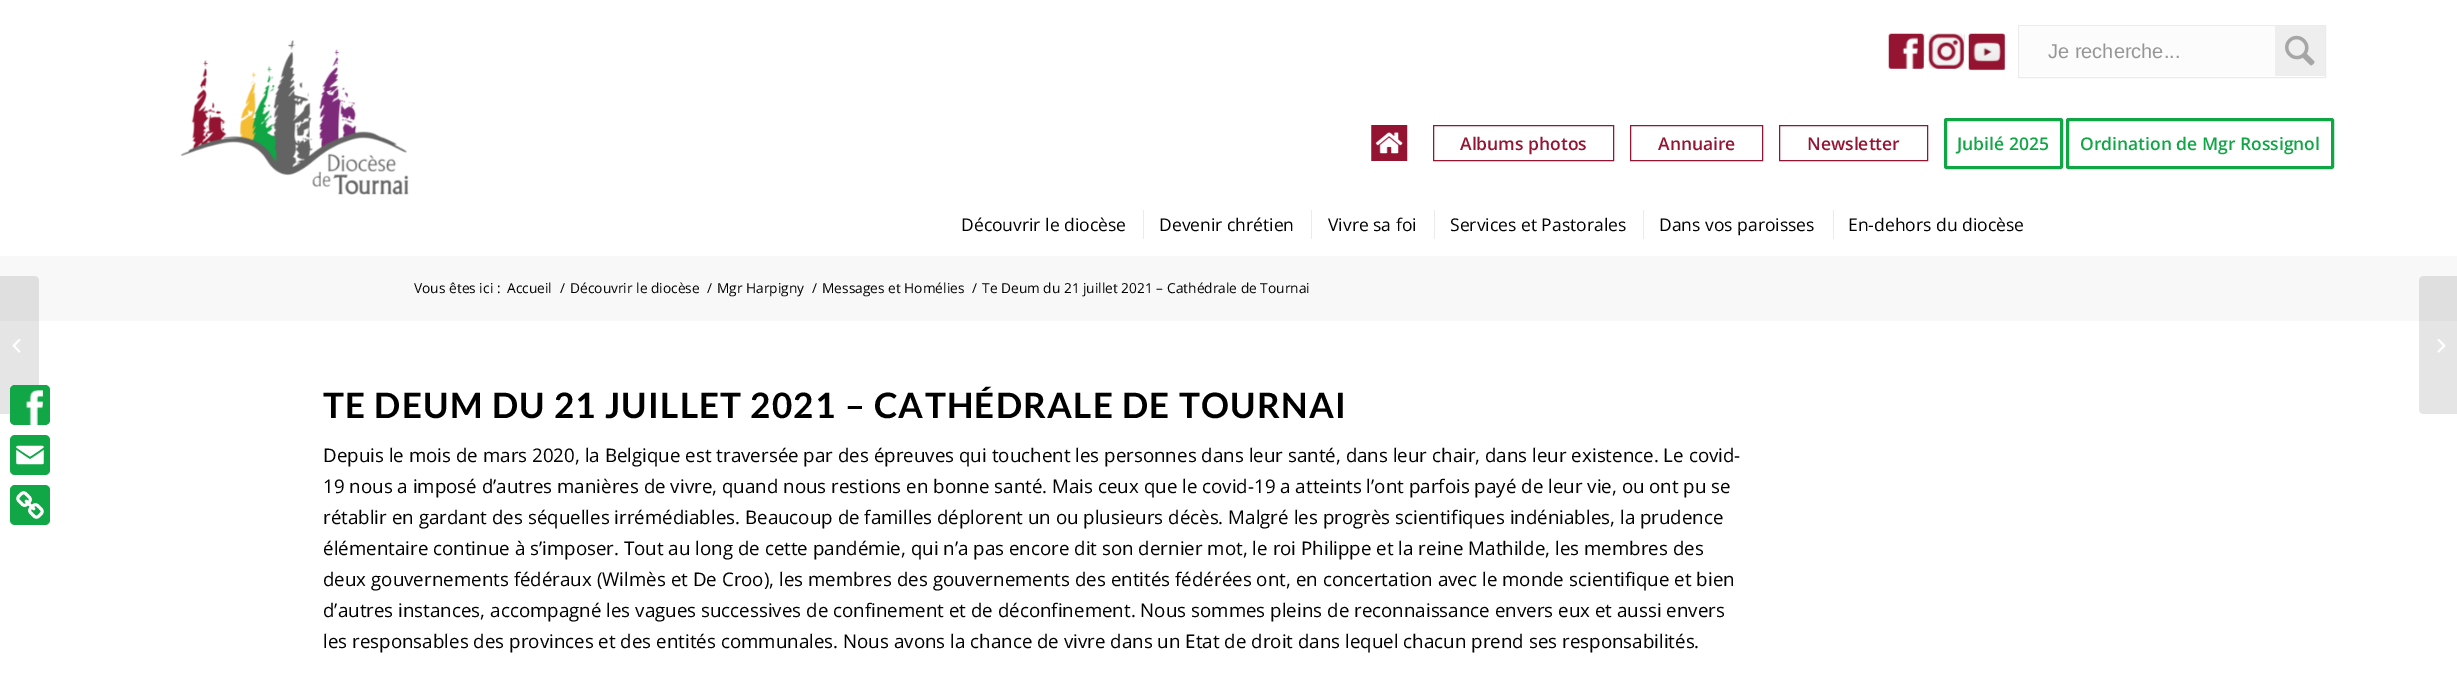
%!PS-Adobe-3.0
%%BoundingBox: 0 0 2457 690
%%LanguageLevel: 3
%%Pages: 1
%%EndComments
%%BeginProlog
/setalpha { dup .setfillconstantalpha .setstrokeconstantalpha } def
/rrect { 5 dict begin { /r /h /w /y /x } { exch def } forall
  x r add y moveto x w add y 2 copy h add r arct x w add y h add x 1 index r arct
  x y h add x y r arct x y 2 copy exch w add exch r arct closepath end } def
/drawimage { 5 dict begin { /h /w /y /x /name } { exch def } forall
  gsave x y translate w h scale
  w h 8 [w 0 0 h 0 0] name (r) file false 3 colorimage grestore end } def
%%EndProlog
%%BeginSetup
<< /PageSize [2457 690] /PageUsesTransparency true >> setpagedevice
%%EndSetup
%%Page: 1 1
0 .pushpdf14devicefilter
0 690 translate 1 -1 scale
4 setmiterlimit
1 setgray
0 0 2457 690 rectfill
0.973 setgray
0 256 2457 65 rectfill
0.1 setalpha
0 setgray
newpath 0 276 moveto 34 276 lineto 37 276 39 278 39 281 curveto 39 409 lineto 39 412 37 414 34 414 curveto 0 414 lineto closepath fill
1 setalpha
(images/1.raw) 10 385 40 40 drawimage
0.067 0.651 0.275 setrgbcolor
10 435 40 40 5 rrect fill
(images/2.raw) 16 445 28 20 drawimage
10 485 40 40 5 rrect fill
(images/3.raw) 16 491 28 28 drawimage
0.922 setgray
1924 34 1 22 rectfill
(images/4.raw) 1888 33 36 36 drawimage
1964 34 1 22 rectfill
(images/5.raw) 1928 33 36 36 drawimage
(images/6.raw) 1968 33 38 38 drawimage
2018.5 25.5 307 52 rectstroke
0.988 setgray
2019 26 256 50 rectfill
0.933 setgray
2275 26 50 50 rectfill
(images/7.raw) 2285 35 30 31 drawimage
(images/8.raw) 180 40 229 155 drawimage
(images/9.raw) 1371 125 37 36 drawimage
0.58 0.078 0.196 setrgbcolor
1433.5 125.5 180 35 rectstroke
1630.5 125.5 132 35 rectstroke
1779.5 125.5 148 35 rectstroke
0.063 0.647 0.271 setrgbcolor
3 setlinewidth
1945.5 119.5 116 48 1 rrect stroke
2067.5 119.5 265 48 1 rrect stroke
(images/10.raw) 12 339 9 14 drawimage
0.922 setgray
1143 210 1 29 rectfill
1311 210 1 29 rectfill
1434 210 1 29 rectfill
1643 210 1 29 rectfill
1833 210 1 29 rectfill
0.1 setalpha
0 setgray
newpath 2424 276 moveto 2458 276 lineto 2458 414 lineto 2424 414 lineto 2421 414 2419 412 2419 409 curveto 2419 281 lineto 2419 278 2421 276 2424 276 curveto closepath fill
1 setalpha
(images/11.raw) 2437 339 9 14 drawimage
/LiberationSans-Regular [20 0 0 -20 0 0] selectfont
0.588 setgray
2048 58 moveto (Je recherche...) show
/OpenSans-SemiBold [17.5 0 0 -17.5 0 0] selectfont
0.58 0.078 0.196 setrgbcolor
1460 150 moveto (Albums photos) show
1658 150 moveto (Annuaire) show
1807 150 moveto (Newsletter) show
0.063 0.647 0.271 setrgbcolor
1957 150 moveto (Jubilé 2025) show
2080 150 moveto (Ordination de Mgr Rossignol) show
/OpenSans-Regular [17.5 0 0 -17.5 0 0] selectfont
0 setgray
961 231 moveto (Découvrir le diocèse) show
1159 231 moveto (Devenir chrétien) show
1328 231 moveto (Vivre sa foi) show
1450 231 moveto (Services et Pastorales) show
1659 231 moveto (Dans vos paroisses) show
1848 231 moveto (En-dehors du diocèse) show
/OpenSans-Regular [13.75 0 0 -13.75 0 0] selectfont
414 293 moveto (Vous êtes ici :) show
507 293 moveto (Accueil) show
560 293 moveto (/) show
570 293 moveto (Découvrir le diocèse) show
707 293 moveto (/) show
717 293 moveto (Mgr Harpigny) show
812 293 moveto (/) show
822 293 moveto (Messages et Homélies) show
972 293 moveto (/) show
982 293 moveto (Te Deum du 21 juillet 2021 – Cathédrale de Tournai) show
/Lato-Bold [35 0 0 -35 0 0] selectfont
323 418 moveto 1.25 0 (TE DEUM DU 21 JUILLET 2021 – CATHÉDRALE DE TOURNAI) ashow
/OpenSans-Regular [18.75 0 0 -18.75 0 0] selectfont
323 462 moveto (Depuis le mois de mars 2020, la Belgique est traversée par des épreuves qui touchent les personnes dans leur santé, dans leur chair, dans leur existence. Le covid-) show
323 493 moveto (19 nous a imposé d’autres manières de vivre, quand nous restions en bonne santé. Mais ceux que le covid-19 a atteints l’ont parfois payé de leur vie, ou ont pu se) show
323 524 moveto (rétablir en gardant des séquelles irrémédiables. Beaucoup de familles déplorent un ou plusieurs décès. Malgré les progrès scientifiques indéniables, la prudence) show
323 555 moveto (élémentaire continue à s’imposer. Tout au long de cette pandémie, qui n’a pas encore dit son dernier mot, le roi Philippe et la reine Mathilde, les membres des) show
323 586 moveto (deux gouvernements fédéraux \(Wilmès et De Croo\), les membres des gouvernements des entités fédérées ont, en concertation avec le monde scientifique et bien) show
323 617 moveto (d’autres instances, accompagné les vagues successives de confinement et de déconfinement. Nous sommes pleins de reconnaissance envers eux et aussi envers) show
323 648 moveto (les responsables des provinces et des entités communales. Nous avons la chance de vivre dans un Etat de droit dans lequel chacun prend ses responsabilités.) show
.poppdf14devicefilter showpage
%%EOF
